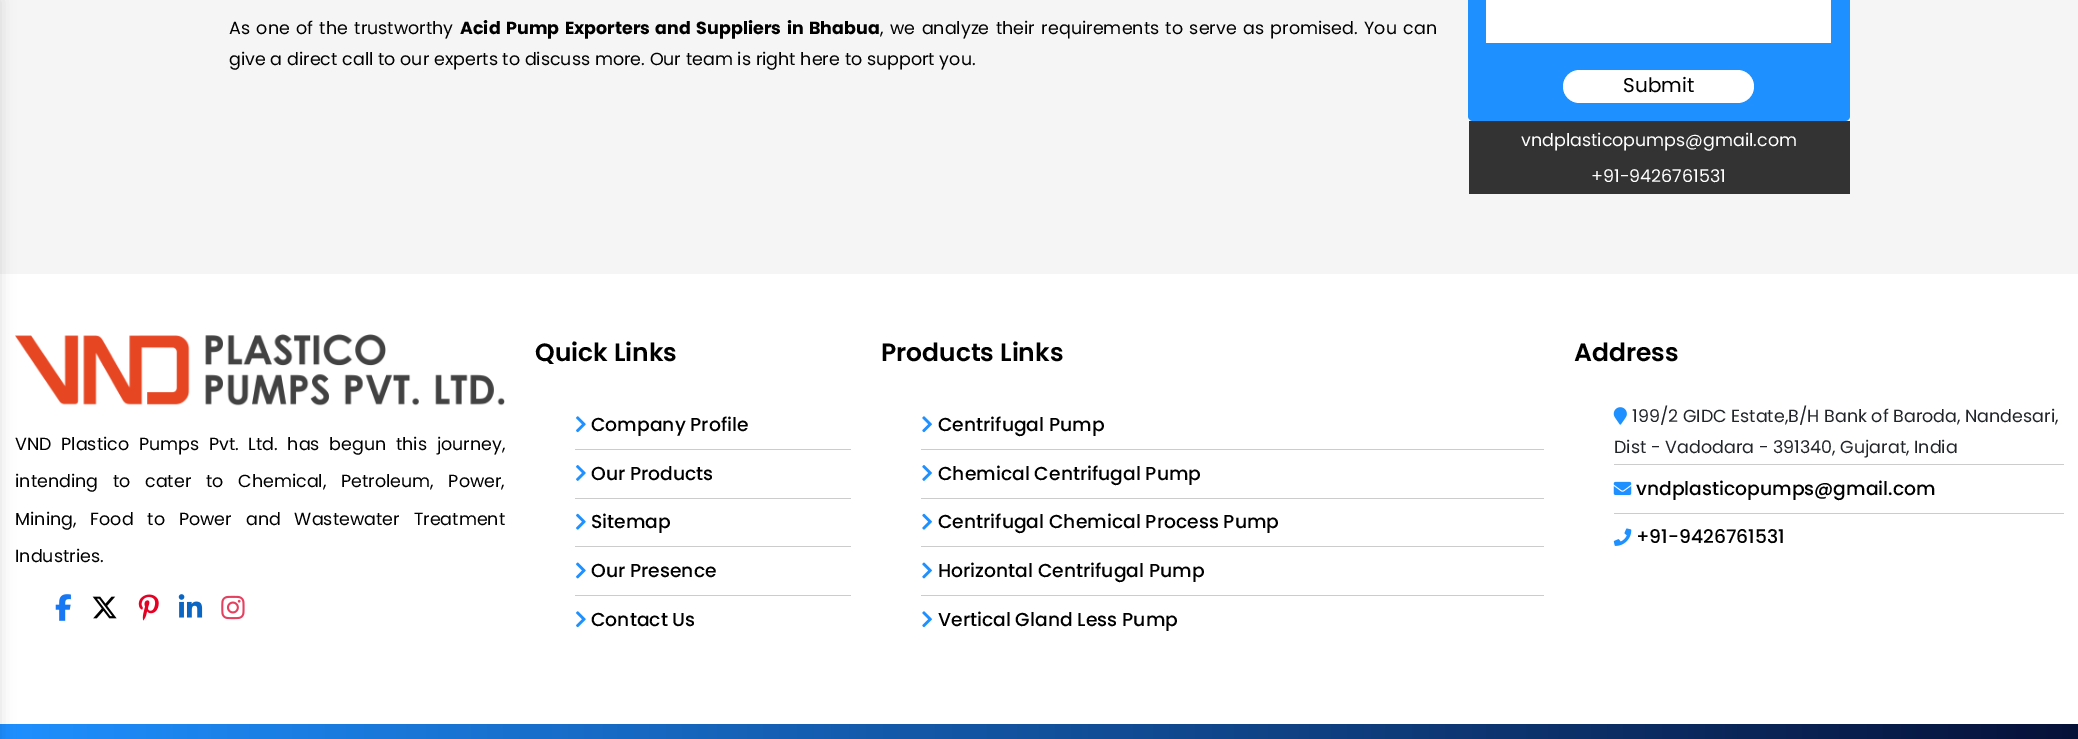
%!PS-Adobe-3.0
%%BoundingBox: 0 0 2078 739
%%LanguageLevel: 3
%%Pages: 1
%%EndComments
%%BeginProlog
/setalpha { dup .setfillconstantalpha .setstrokeconstantalpha } def
/rrect { 5 dict begin { /r /h /w /y /x } { exch def } forall
  x r add y moveto x w add y 2 copy h add r arct x w add y h add x 1 index r arct
  x y h add x y r arct x y 2 copy exch w add exch r arct closepath end } def
/softshadow { 12 dict begin { /a /b /q /h /w /y /x } { exch def } forall gsave /was 0 def
  9 -2 -9 { dup b mul 4 div /e exch def 1 sub .425 mul 2.718 exch exp 1 add a .99 .min exch div /now exch def
    1 1 now sub 1 was sub div sub setalpha /was now def
    w h .min e 2 mul add 0 gt { x e sub y e sub w e 2 mul add h e 2 mul add
      q e add b .6 mul add w h .min 2 div e add .min 0 .max rrect fill } if } for grestore end } def
/drawimage { 5 dict begin { /h /w /y /x /name } { exch def } forall
  gsave x y translate w h scale
  w h 8 [w 0 0 h 0 0] name (r) file false 3 colorimage grestore end } def
%%EndProlog
%%BeginSetup
<< /PageSize [2078 739] /PageUsesTransparency true >> setpagedevice
%%EndSetup
%%Page: 1 1
0 .pushpdf14devicefilter
0 739 translate 1 -1 scale
4 setmiterlimit
1 setgray
0 0 2078 739 rectfill
0.961 setgray
0 0 2078 274 rectfill
(images/1.raw) 15 334 490 72 drawimage
gsave newpath 0 724 moveto 2078 724 lineto 2078 739 lineto 0 739 lineto closepath clip newpath
<< /ShadingType 2 /ColorSpace /DeviceRGB /Coords [0 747 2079 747] /Extend [true true] /Function << /FunctionType 2 /Domain [0 1] /C0 [0.118 0.565 1] /C1 [0.024 0.067 0.22] /N 1 >> >> shfill grestore
0 setgray
-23 0 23 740 0 7.5 0.14 softshadow
0.118 0.565 1 setrgbcolor
1468 -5 382 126 5 rrect fill
1 setgray
1486 0 345 43 rectfill
1563 70 191 33 16.5 rrect fill
0.2 setgray
1469 121 381 73 rectfill
(images/2.raw) 55 594 16 27 drawimage
(images/3.raw) 92 596 25 23 drawimage
(images/4.raw) 138 594 21 27 drawimage
(images/5.raw) 178 594 25 24 drawimage
(images/6.raw) 221 595 24 25 drawimage
0.8 setgray
575 449 276 1 rectfill
(images/7.raw) 576 416 10 17 drawimage
575 498 276 1 rectfill
(images/8.raw) 576 465 10 16 drawimage
575 546 276 1 rectfill
(images/9.raw) 576 513 10 17 drawimage
575 595 276 1 rectfill
(images/10.raw) 576 562 10 17 drawimage
(images/7.raw) 576 611 10 17 drawimage
921 449 623 1 rectfill
(images/11.raw) 922 416 10 17 drawimage
921 498 623 1 rectfill
(images/12.raw) 922 465 10 16 drawimage
921 546 623 1 rectfill
(images/13.raw) 922 513 10 17 drawimage
921 595 623 1 rectfill
(images/14.raw) 922 562 10 17 drawimage
(images/11.raw) 922 611 10 17 drawimage
1614 464 450 1 rectfill
(images/15.raw) 1613 407 14 18 drawimage
1614 513 450 1 rectfill
(images/16.raw) 1613 481 19 14 drawimage
(images/17.raw) 1613 528 19 18 drawimage
/Poppins-Regular [17.5 0 0 -17.5 0 0] selectfont
0 setgray
229 34 moveto 1.75 0 32 (As one of the trustworthy) widthshow
/Poppins-Bold [17.5 0 0 -17.5 0 0] selectfont
460 34 moveto 1.75 0 32 (Acid Pump Exporters and Suppliers in Bhabua) widthshow
/Poppins-Regular [17.5 0 0 -17.5 0 0] selectfont
880 34 moveto 1.75 0 32 (, we analyze their requirements to serve as promised. You can) widthshow
229 65 moveto (give a direct call to our experts to discuss more. Our team is right here to support you.) show
/Poppins-Regular [20 0 0 -20 0 0] selectfont
1623 92 moveto (Submit) show
/Poppins-Regular [17.5 0 0 -17.5 0 0] selectfont
1 setgray
1521 146 moveto (vndplasticopumps@gmail.com) show
1591 182 moveto (+91-9426761531) show
0 setgray
15 450 moveto 5 0 32 (VND Plastico Pumps Pvt. Ltd. has begun this journey,) widthshow
15 487 moveto 10 0 32 (intending to cater to Chemical, Petroleum, Power,) widthshow
15 525 moveto 9.25 0 32 (Mining, Food to Power and Wastewater Treatment) widthshow
15 562 moveto (Industries.) show
/Poppins-SemiBold [25 0 0 -25 0 0] selectfont
535 361 moveto (Quick Links) show
/Poppins-Medium [18.75 0 0 -18.75 0 0] selectfont
591 431 moveto (Company Profile) show
591 480 moveto (Our Products) show
591 528 moveto (Sitemap) show
591 577 moveto (Our Presence) show
591 626 moveto (Contact Us) show
/Poppins-SemiBold [25 0 0 -25 0 0] selectfont
881 361 moveto (Products Links) show
/Poppins-Medium [18.75 0 0 -18.75 0 0] selectfont
938 431 moveto (Centrifugal Pump) show
938 480 moveto (Chemical Centrifugal Pump) show
938 528 moveto (Centrifugal Chemical Process Pump) show
938 577 moveto (Horizontal Centrifugal Pump) show
938 626 moveto (Vertical Gland Less Pump) show
/Poppins-SemiBold [25 0 0 -25 0 0] selectfont
1574 361 moveto (Address) show
/Poppins-Regular [17.5 0 0 -17.5 0 0] selectfont
0.129 0.145 0.161 setrgbcolor
1632 422 moveto (199/2 GIDC Estate,B/H Bank of Baroda, Nandesari,) show
1614 453 moveto (Dist - Vadodara - 391340, Gujarat, India) show
/Poppins-Medium [18.75 0 0 -18.75 0 0] selectfont
0 setgray
1636 495 moveto (vndplasticopumps@gmail.com) show
1636 543 moveto (+91-9426761531) show
.poppdf14devicefilter showpage
%%EOF
